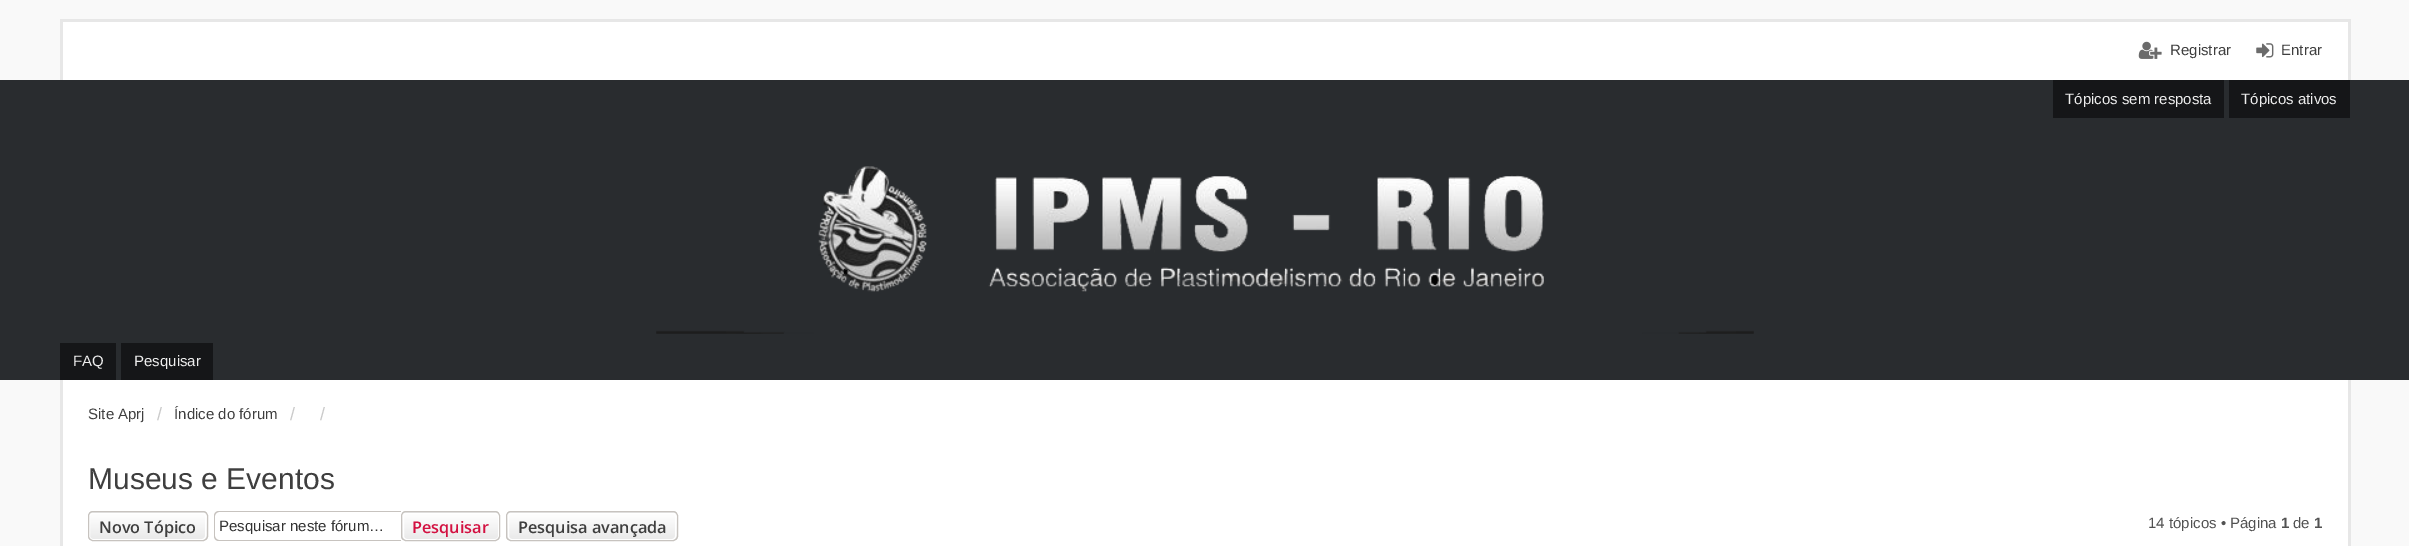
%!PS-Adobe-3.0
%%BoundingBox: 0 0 2409 546
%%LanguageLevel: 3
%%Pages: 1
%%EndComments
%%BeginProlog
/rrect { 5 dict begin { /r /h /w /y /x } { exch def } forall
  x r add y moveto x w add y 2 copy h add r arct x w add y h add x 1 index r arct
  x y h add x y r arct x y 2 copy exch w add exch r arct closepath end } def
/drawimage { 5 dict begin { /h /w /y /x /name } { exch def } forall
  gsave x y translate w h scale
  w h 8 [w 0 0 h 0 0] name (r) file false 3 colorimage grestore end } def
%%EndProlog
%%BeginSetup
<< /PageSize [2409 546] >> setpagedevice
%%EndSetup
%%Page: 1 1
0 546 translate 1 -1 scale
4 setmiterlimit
0.976 setgray
0 0 2409 546 rectfill
1 setgray
63 22 2285 58 rectfill
0.906 setgray
60 19 2290 3 rectfill
2348 19 3 61 rectfill
60 19 3 61 rectfill
(images/1.raw) 2138 41 24 18 drawimage
(images/2.raw) 2256 43 18 15 drawimage
0.161 0.173 0.184 setrgbcolor
0 80 2409 300 rectfill
(images/3.raw) 656 166 1098 168 drawimage
0.082 0.086 0.094 setrgbcolor
2053 80 171 38 rectfill
2229 80 121 38 rectfill
60 343 56 37 rectfill
121 343 92 37 rectfill
1 setgray
63 380 2285 166 rectfill
0.906 setgray
2348 380 3 166 rectfill
60 380 3 166 rectfill
gsave
88 511 120 30 5 rrect clip newpath
gsave newpath 88 511 moveto 208 511 lineto 208 513 lineto 88 513 lineto closepath clip newpath
<< /ShadingType 2 /ColorSpace /DeviceRGB /Coords [148 485 148 513] /Extend [true true] /Function << /FunctionType 2 /Domain [0 1] /C0 [1 1 1] /C1 [0.914 0.914 0.914] /N 1 >> >> shfill grestore
gsave newpath 88 513 moveto 208 513 lineto 208 540 lineto 88 540 lineto closepath clip newpath
<< /ShadingType 2 /ColorSpace /DeviceRGB /Coords [148 513 148 540] /Extend [true true] /Function << /FunctionType 2 /Domain [0 1] /C0 [1 1 1] /C1 [0.914 0.914 0.914] /N 1 >> >> shfill grestore
grestore
1 setgray
89.5 513.5 116 26 3.5 rrect stroke
0.78 0.765 0.749 setrgbcolor
88.5 511.5 119 29 4.5 rrect stroke
newpath 219 511 moveto 401 511 lineto 401 541 lineto 219 541 lineto 216 541 214 539 214 536 curveto 214 516 lineto 214 513 216 511 219 511 curveto closepath 219 512 moveto 401 512 lineto 401 540 lineto 219 540 lineto 217 540 215 538 215 536 curveto 215 516 lineto 215 514 217 512 219 512 curveto closepath eofill
gsave
401 511 99 30 5 rrect clip newpath
gsave newpath 401 511 moveto 500 511 lineto 500 513 lineto 401 513 lineto closepath clip newpath
<< /ShadingType 2 /ColorSpace /DeviceRGB /Coords [451 485 451 513] /Extend [true true] /Function << /FunctionType 2 /Domain [0 1] /C0 [1 1 1] /C1 [0.914 0.914 0.914] /N 1 >> >> shfill grestore
gsave newpath 401 513 moveto 500 513 lineto 500 540 lineto 401 540 lineto closepath clip newpath
<< /ShadingType 2 /ColorSpace /DeviceRGB /Coords [451 513 451 540] /Extend [true true] /Function << /FunctionType 2 /Domain [0 1] /C0 [1 1 1] /C1 [0.914 0.914 0.914] /N 1 >> >> shfill grestore
grestore
1 setgray
403.5 513.5 95 26 3.5 rrect stroke
0.78 0.765 0.749 setrgbcolor
401.5 511.5 98 29 4.5 rrect stroke
gsave
506 511 172 30 5 rrect clip newpath
gsave newpath 506 511 moveto 678 511 lineto 678 513 lineto 506 513 lineto closepath clip newpath
<< /ShadingType 2 /ColorSpace /DeviceRGB /Coords [592 485 592 513] /Extend [true true] /Function << /FunctionType 2 /Domain [0 1] /C0 [1 1 1] /C1 [0.914 0.914 0.914] /N 1 >> >> shfill grestore
gsave newpath 506 513 moveto 678 513 lineto 678 540 lineto 506 540 lineto closepath clip newpath
<< /ShadingType 2 /ColorSpace /DeviceRGB /Coords [592 513 592 540] /Extend [true true] /Function << /FunctionType 2 /Domain [0 1] /C0 [1 1 1] /C1 [0.914 0.914 0.914] /N 1 >> >> shfill grestore
grestore
1 setgray
508.5 513.5 167 26 3.5 rrect stroke
0.78 0.765 0.749 setrgbcolor
506.5 511.5 171 29 4.5 rrect stroke
/LiberationSans-Regular [15 0 0 -15 0 0] selectfont
0.247 setgray
2170 55 moveto (Registrar) show
2281 55 moveto (Entrar) show
0.933 setgray
2065 104 moveto (Tópicos sem resposta) show
2241 104 moveto (Tópicos ativos) show
73 366 moveto (FAQ) show
134 366 moveto (Pesquisar) show
0.247 setgray
88 419 moveto (Site Aprj) show
/LiberationSans-Regular [18 0 0 -18 0 0] selectfont
0.792 setgray
157 420 moveto (/) show
/LiberationSans-Regular [15 0 0 -15 0 0] selectfont
0.247 setgray
174 419 moveto (Índice do fórum) show
/LiberationSans-Regular [18 0 0 -18 0 0] selectfont
0.792 setgray
290 420 moveto (/) show
320 420 moveto (/) show
/LiberationSans-Regular [30 0 0 -30 0 0] selectfont
0.247 setgray
88 489 moveto (Museus e Eventos) show
/OpenSans-SemiBold [16.25 0 0 -16.25 0 0] selectfont
99 533 moveto (Novo Tópico) show
/LiberationSans-Regular [15 0 0 -15 0 0] selectfont
0.2 setgray
219 531 moveto (Pesquisar neste fórum…) show
/OpenSans-SemiBold [16.25 0 0 -16.25 0 0] selectfont
0.827 0.067 0.255 setrgbcolor
412 533 moveto (Pesquisar) show
0.247 setgray
518 533 moveto (Pesquisa avançada) show
/LiberationSans-Regular [15 0 0 -15 0 0] selectfont
0.322 setgray
2148 528 moveto (14 tópicos • Página) show
/LiberationSans-Bold [15 0 0 -15 0 0] selectfont
2281 528 moveto (1) show
/LiberationSans-Regular [15 0 0 -15 0 0] selectfont
2293 528 moveto (de) show
/LiberationSans-Bold [15 0 0 -15 0 0] selectfont
2314 528 moveto (1) show
showpage
%%EOF
